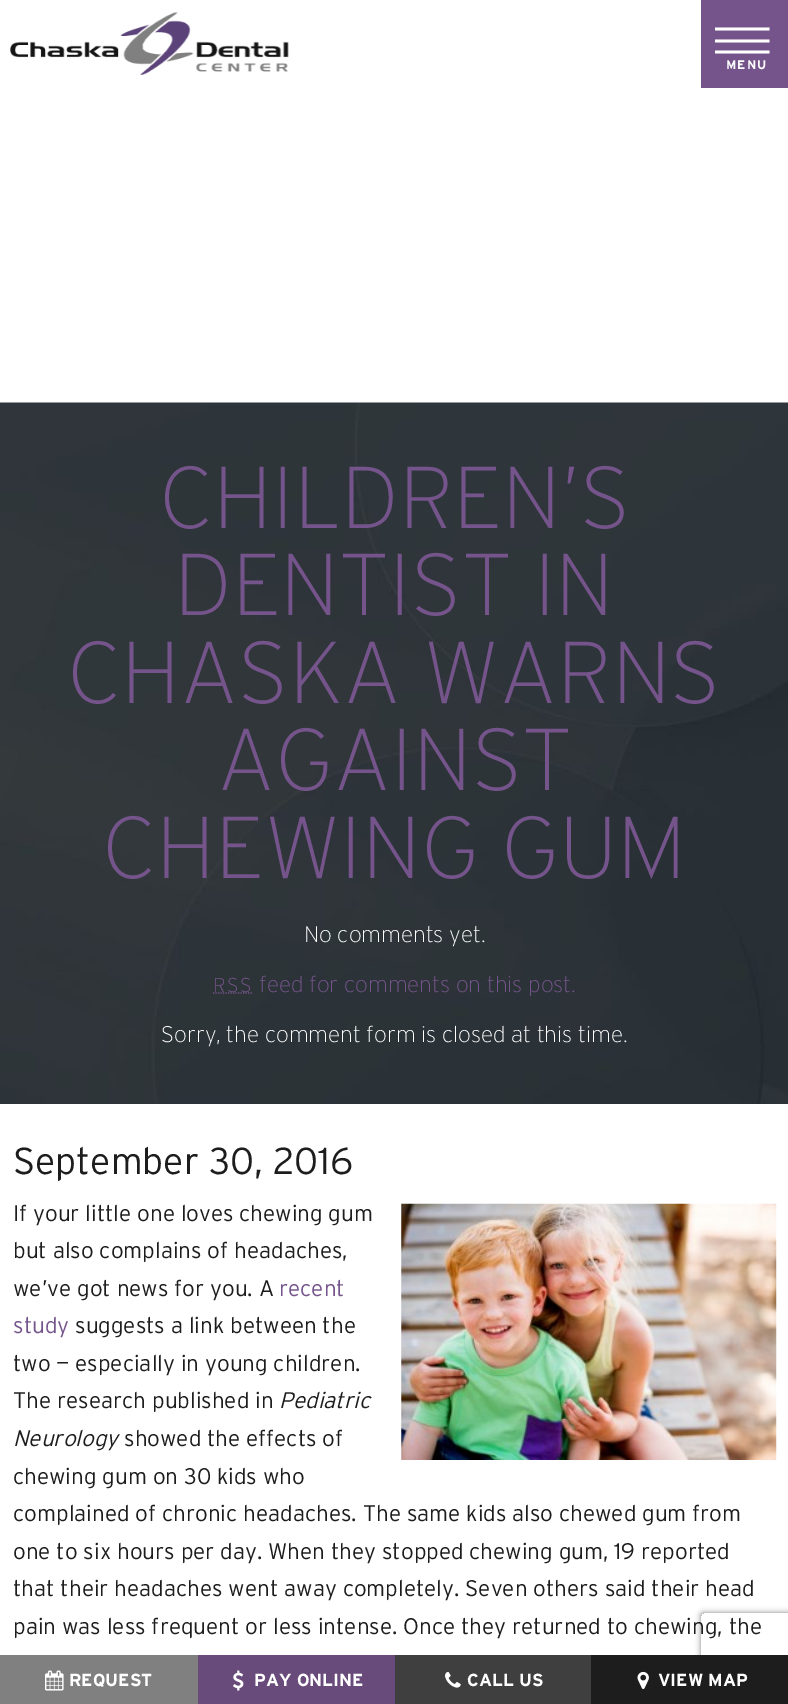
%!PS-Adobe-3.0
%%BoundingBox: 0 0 788 1704
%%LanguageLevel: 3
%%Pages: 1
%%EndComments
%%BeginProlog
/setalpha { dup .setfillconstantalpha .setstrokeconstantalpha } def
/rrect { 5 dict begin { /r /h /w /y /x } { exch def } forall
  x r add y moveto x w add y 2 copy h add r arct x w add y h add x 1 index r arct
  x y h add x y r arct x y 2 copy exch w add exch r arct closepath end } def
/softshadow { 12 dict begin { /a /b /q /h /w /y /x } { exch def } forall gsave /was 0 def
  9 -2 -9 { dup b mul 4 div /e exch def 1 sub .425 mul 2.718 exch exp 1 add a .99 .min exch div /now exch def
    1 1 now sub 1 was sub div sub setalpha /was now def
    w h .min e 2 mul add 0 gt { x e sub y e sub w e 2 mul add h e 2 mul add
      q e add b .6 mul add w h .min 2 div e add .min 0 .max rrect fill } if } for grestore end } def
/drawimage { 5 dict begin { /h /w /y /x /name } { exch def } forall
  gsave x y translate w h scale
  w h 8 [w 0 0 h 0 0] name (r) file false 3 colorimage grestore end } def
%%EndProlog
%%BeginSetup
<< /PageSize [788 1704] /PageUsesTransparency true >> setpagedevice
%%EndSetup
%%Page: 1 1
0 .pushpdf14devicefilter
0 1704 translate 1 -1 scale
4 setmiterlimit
1 setgray
0 0 788 1704 rectfill
(images/1.raw) 10 12 279 63 drawimage
0.459 0.329 0.545 setrgbcolor
701 0 87 88 rectfill
(images/2.raw) 0 402 788 702 drawimage
1.2 setlinewidth
[1.25 1.25] 0 setdash
newpath 213 993 moveto 253 993 lineto stroke
(images/3.raw) 401 1203 376 257 drawimage
gsave
newpath 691 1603 moveto 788 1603 lineto 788 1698 lineto 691 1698 lineto closepath 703.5 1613 moveto 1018.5 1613 lineto 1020 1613 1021 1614 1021 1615.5 curveto 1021 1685.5 lineto 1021 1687 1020 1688 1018.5 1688 curveto 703.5 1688 lineto 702 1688 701 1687 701 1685.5 curveto 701 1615.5 lineto 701 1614 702 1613 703.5 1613 curveto closepath eoclip newpath
0.502 setgray
701 1613 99 75 2.5 3 1 softshadow
grestore
0.506 0.502 0.502 setrgbcolor
0 1655 198 49 rectfill
(images/4.raw) 45 1670 19 21 drawimage
0.408 0.29 0.482 setrgbcolor
198 1655 197 49 rectfill
(images/5.raw) 233 1670 11 21 drawimage
0.247 setgray
395 1655 196 49 rectfill
(images/6.raw) 445 1671 16 17 drawimage
0.114 0.114 0.118 setrgbcolor
591 1655 197 49 rectfill
(images/7.raw) 637 1671 12 18 drawimage
/LiberationSerif-Regular [60 0 0 -60 0 0] selectfont
1 setgray
gsave 728 23 translate 90 rotate 0 0 moveto -0.5 0 (|||) ashow grestore
/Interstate-Bold [12.5 0 0 -12.5 0 0] selectfont
726 69 moveto 1 0 (MENU) ashow
/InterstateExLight-ExtraLight [87.5 0 0 -87.5 0 0] selectfont
0.459 0.329 0.545 setrgbcolor
159 528 moveto (CHILDREN’S) show
174 615 moveto (DENTIST IN) show
67 703 moveto (CHASKA WARNS) show
217 790 moveto (AGAINST) show
102 878 moveto (CHEWING GUM) show
/InterstateExLight-ExtraLight [22.5 0 0 -22.5 0 0] selectfont
1 setgray
304 942 moveto (No comments yet.) show
/InterstateExLight-ExtraLight [20 0 0 -20 0 0] selectfont
0.459 0.329 0.545 setrgbcolor
213 992 moveto 1.5 0 (RSS) ashow
/InterstateExLight-ExtraLight [22.5 0 0 -22.5 0 0] selectfont
259 992 moveto (feed for comments on this post.) show
1 setgray
161 1042 moveto (Sorry, the comment form is closed at this time.) show
/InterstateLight-Light [37.5 0 0 -37.5 0 0] selectfont
0.114 0.114 0.118 setrgbcolor
13 1174 moveto (September 30, 2016) show
/InterstateLight-Light [22.5 0 0 -22.5 0 0] selectfont
13 1221 moveto (If your little one loves chewing gum) show
13 1258 moveto (but also complains of headaches,) show
13 1296 moveto (we’ve got news for you. A) show
0.459 0.329 0.545 setrgbcolor
279 1296 moveto (recent) show
13 1333 moveto (study) show
0.114 0.114 0.118 setrgbcolor
75 1333 moveto (suggests a link between the) show
13 1371 moveto (two — especially in young children.) show
13 1408 moveto (The research published in) show
/InterstateLight-LightItalic [22.5 0 0 -22.5 0 0] selectfont
279 1408 moveto (Pediatric) show
13 1446 moveto (Neurology) show
/InterstateLight-Light [22.5 0 0 -22.5 0 0] selectfont
124 1446 moveto (showed the effects of) show
13 1484 moveto (chewing gum on 30 kids who) show
13 1521 moveto (complained of chronic headaches. The same kids also chewed gum from) show
13 1559 moveto (one to six hours per day. When they stopped chewing gum, 19 reported) show
13 1596 moveto (that their headaches went away completely. Seven others said their head) show
13 1634 moveto (pain was less frequent or less intense. Once they returned to chewing, the) show
/Interstate-Bold [17.5 0 0 -17.5 0 0] selectfont
1 setgray
69 1686 moveto (REQUEST) show
254 1686 moveto (PAY ONLINE) show
467 1686 moveto (CALL US) show
658 1686 moveto (VIEW MAP) show
.poppdf14devicefilter showpage
%%EOF
